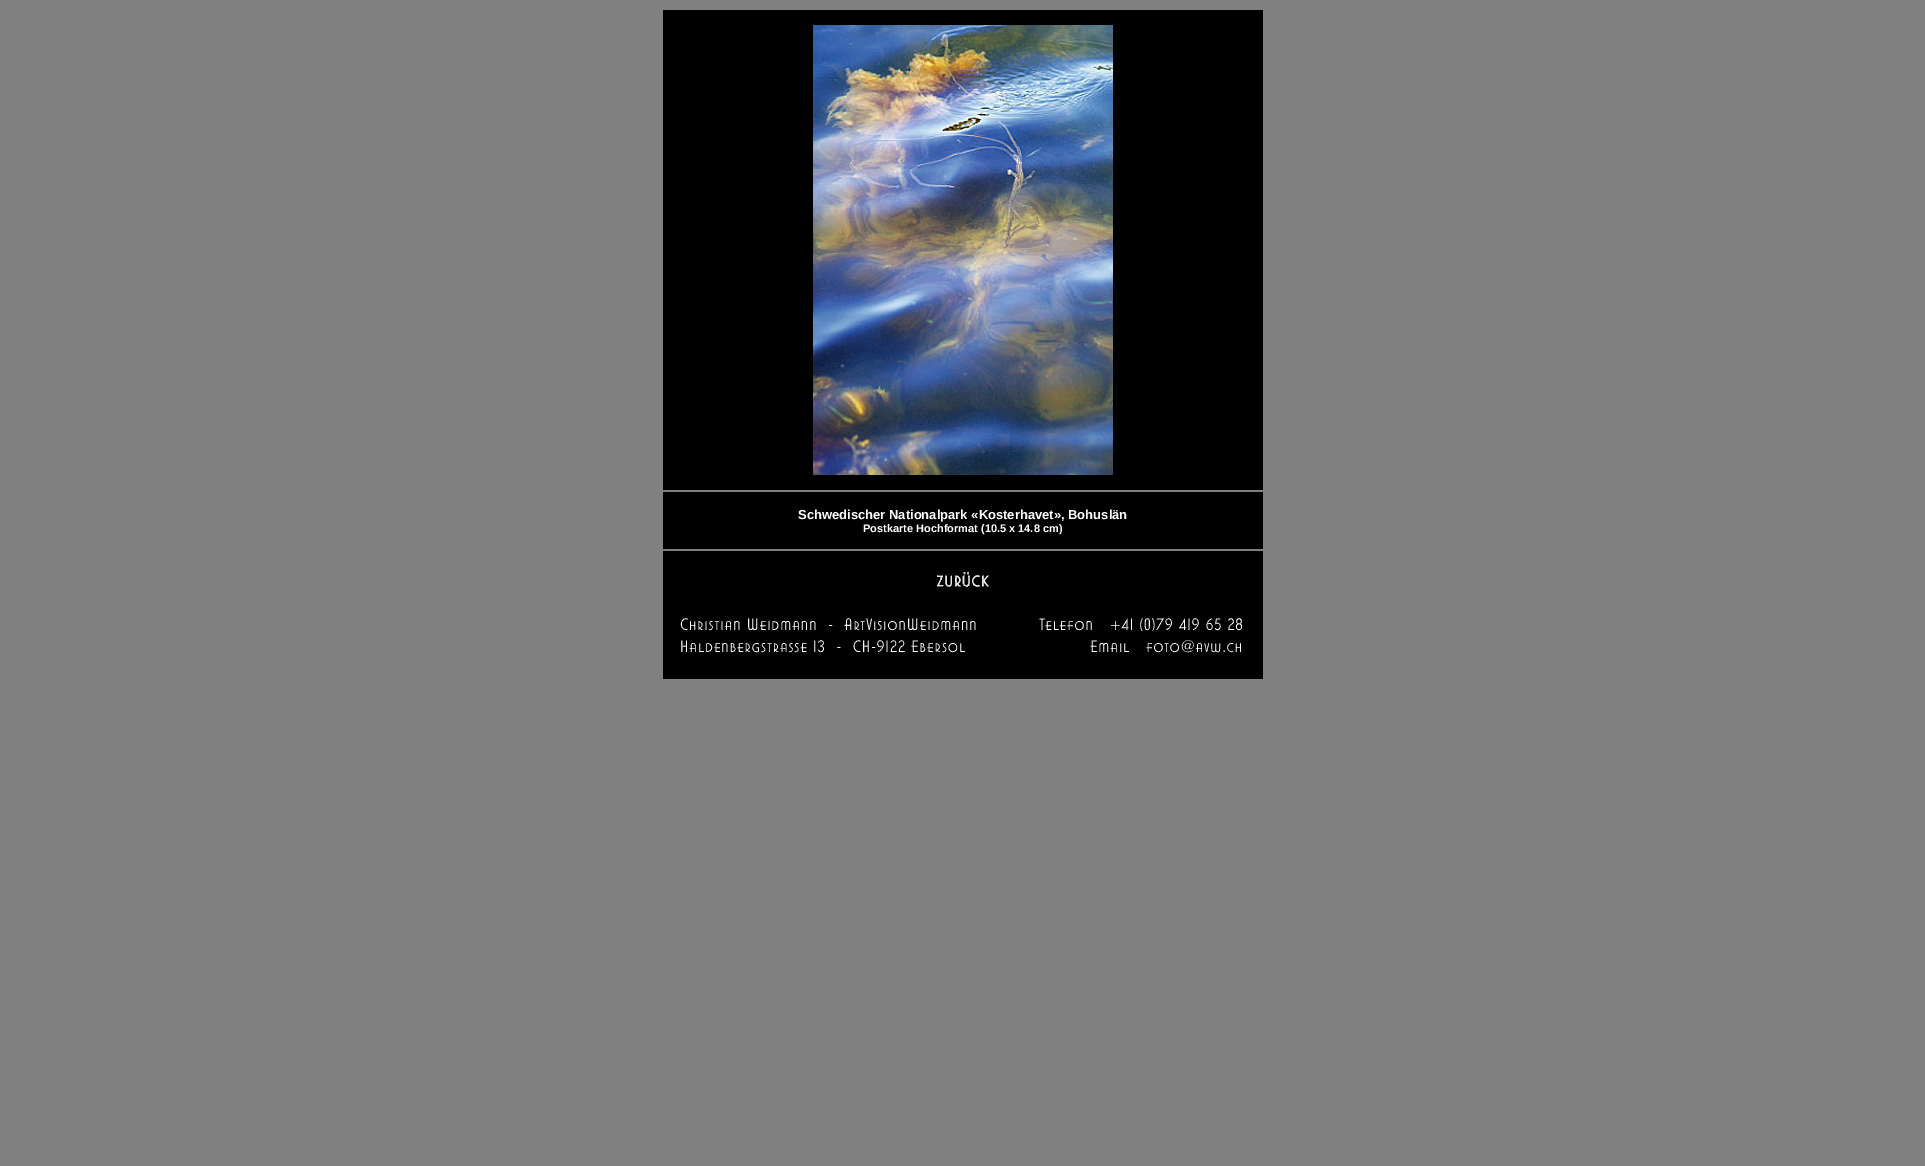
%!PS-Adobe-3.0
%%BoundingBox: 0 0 1925 1166
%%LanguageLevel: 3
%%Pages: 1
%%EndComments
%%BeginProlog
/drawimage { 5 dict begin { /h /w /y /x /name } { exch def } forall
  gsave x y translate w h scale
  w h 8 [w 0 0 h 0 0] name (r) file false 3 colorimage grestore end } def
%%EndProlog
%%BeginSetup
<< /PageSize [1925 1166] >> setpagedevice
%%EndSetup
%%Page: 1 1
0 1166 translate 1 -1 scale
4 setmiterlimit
0.502 setgray
0 0 1925 1166 rectfill
0 setgray
663 10 600 480 rectfill
(images/1.raw) 813 25 300 450 drawimage
663 492 600 57 rectfill
663 551 600 128 rectfill
(images/2.raw) 937 572 52 15 drawimage
(images/3.raw) 680 618 562 35 drawimage
/LiberationSans-Bold [13 0 0 -13 0 0] selectfont
1 setgray
798 519 moveto (Schwedischer Nationalpark «Kosterhavet», Bohuslän) show
/LiberationSans-Bold [11 0 0 -11 0 0] selectfont
863 532 moveto (Postkarte Hochformat \(10.5 x 14.8 cm\)) show
showpage
%%EOF
